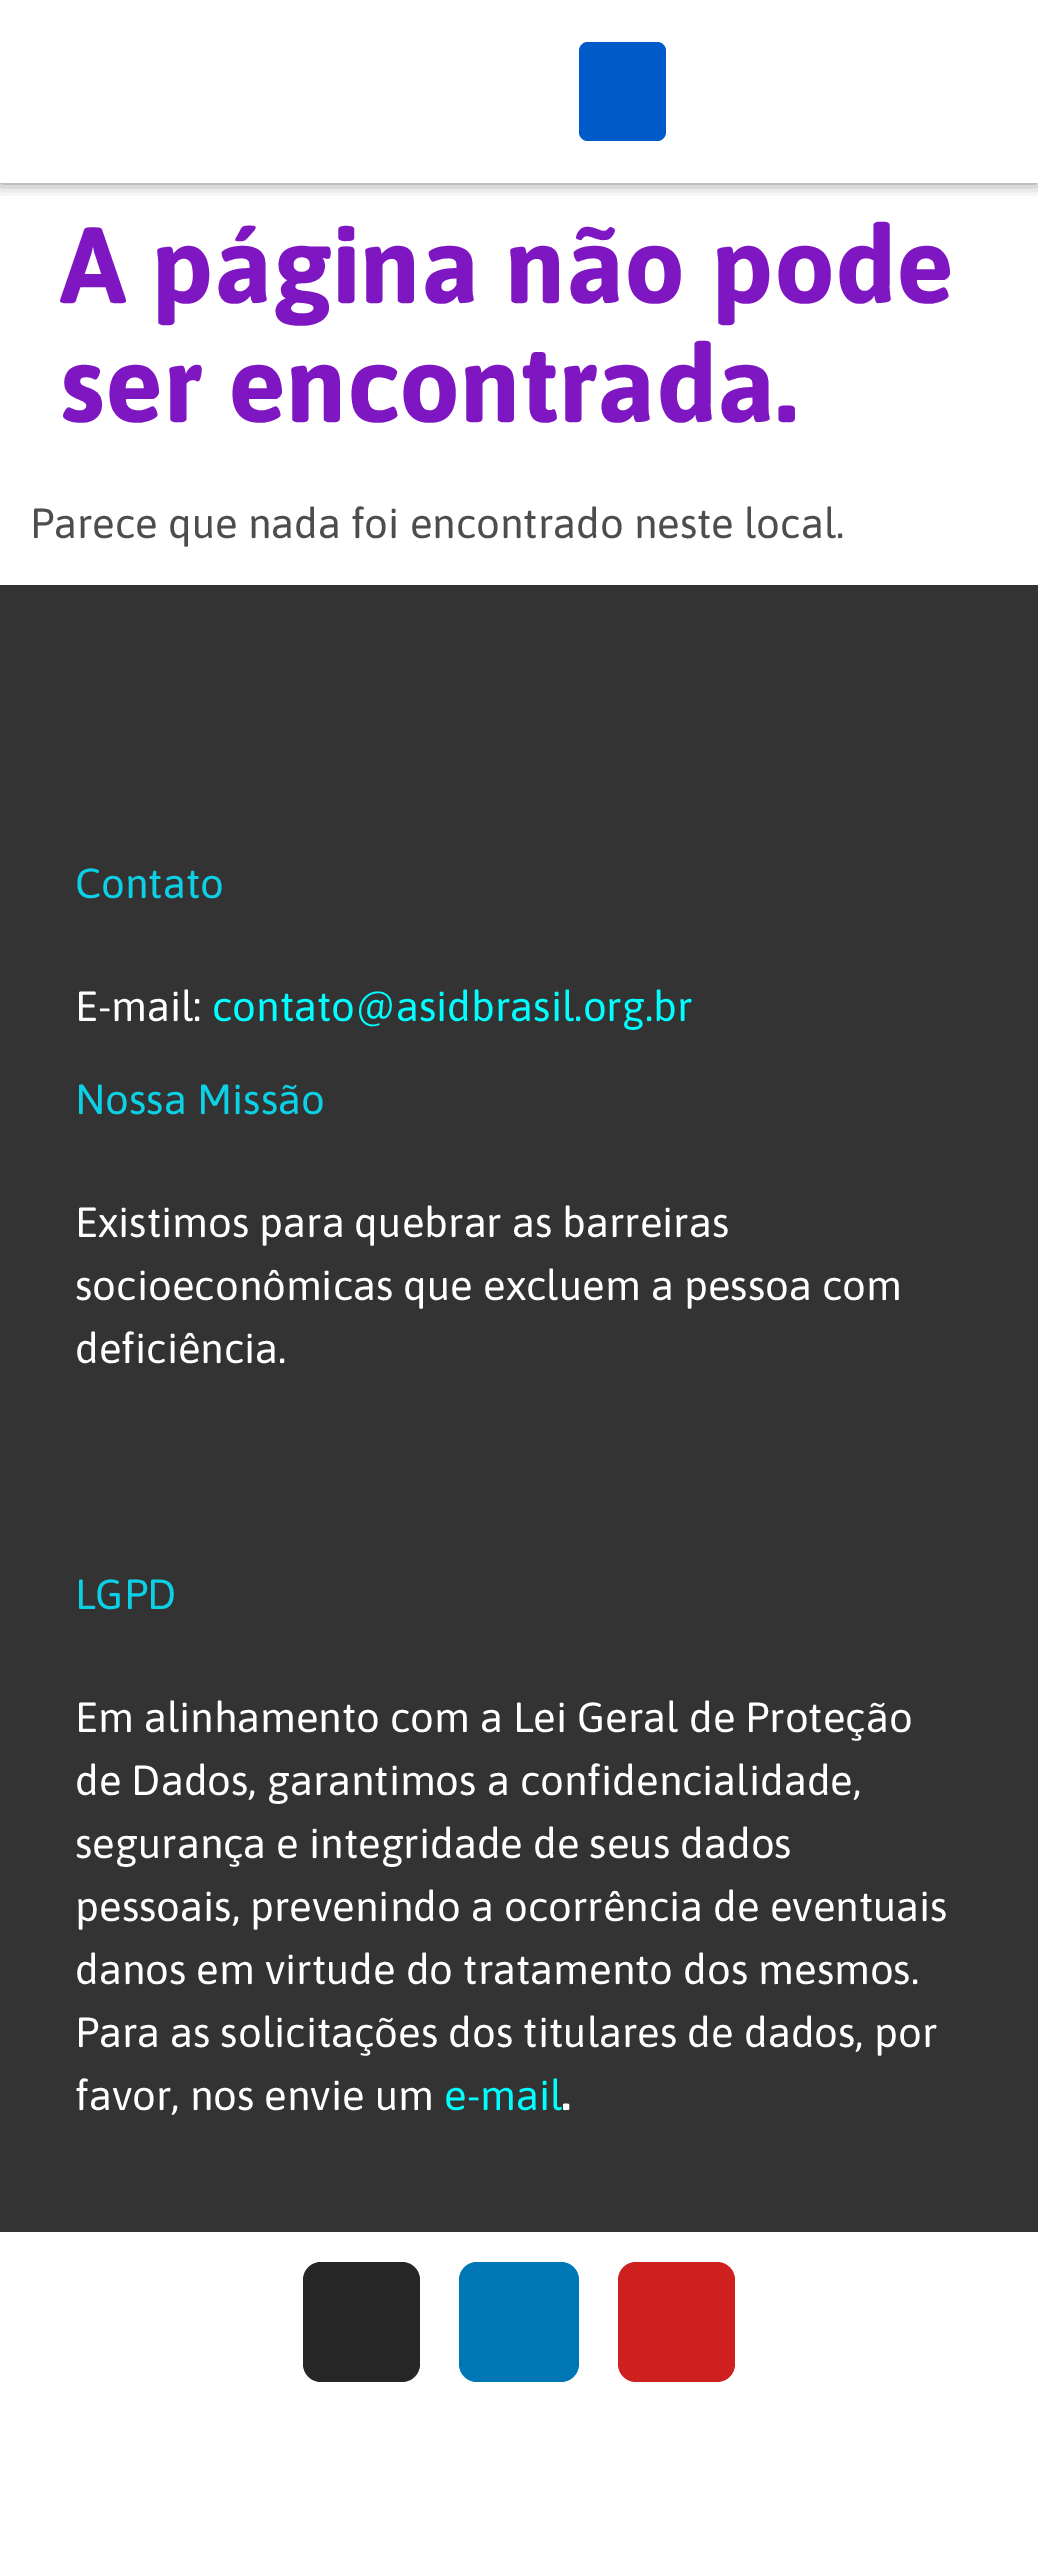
%!PS-Adobe-3.0
%%BoundingBox: 0 0 1038 2563
%%LanguageLevel: 3
%%Pages: 1
%%EndComments
%%BeginProlog
/setalpha { dup .setfillconstantalpha .setstrokeconstantalpha } def
/rrect { 5 dict begin { /r /h /w /y /x } { exch def } forall
  x r add y moveto x w add y 2 copy h add r arct x w add y h add x 1 index r arct
  x y h add x y r arct x y 2 copy exch w add exch r arct closepath end } def
/softshadow { 12 dict begin { /a /b /q /h /w /y /x } { exch def } forall gsave /was 0 def
  9 -2 -9 { dup b mul 4 div /e exch def 1 sub .425 mul 2.718 exch exp 1 add a .99 .min exch div /now exch def
    1 1 now sub 1 was sub div sub setalpha /was now def
    w h .min e 2 mul add 0 gt { x e sub y e sub w e 2 mul add h e 2 mul add
      q e add b .6 mul add w h .min 2 div e add .min 0 .max rrect fill } if } for grestore end } def
%%EndProlog
%%BeginSetup
<< /PageSize [1038 2563] /PageUsesTransparency true >> setpagedevice
%%EndSetup
%%Page: 1 1
0 .pushpdf14devicefilter
0 2563 translate 1 -1 scale
4 setmiterlimit
1 setgray
0 0 1038 2563 rectfill
gsave
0 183 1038 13 rectclip
0 setgray
0 0 1038 183 0 7.5 0.5 softshadow
grestore
0 0.357 0.788 setrgbcolor
579 42 87 99 9 rrect fill
0.2 setgray
0 585 1038 1647 rectfill
0.149 setgray
303 2262 117 120 18 rrect fill
0 0.467 0.71 setrgbcolor
459 2262 120 120 18 rrect fill
0.804 0.125 0.122 setrgbcolor
618 2262 117 120 18 rrect fill
/Asap-Bold [108 0 0 -108 0 0] selectfont
0.494 0.086 0.757 setrgbcolor
60 303 moveto (A página não pode) show
60 422 moveto (ser encontrada.) show
/Asap-Regular [42 0 0 -42 0 0] selectfont
0.302 setgray
30 538 moveto (Parece que nada foi encontrado neste local.) show
0.047 0.816 0.898 setrgbcolor
75 898 moveto (Contato) show
1 setgray
75 1021 moveto (E-mail:) show
0 1 1 setrgbcolor
212 1021 moveto (contato@asidbrasil.org.br) show
0.047 0.816 0.898 setrgbcolor
75 1114 moveto (Nossa Missão) show
1 setgray
75 1237 moveto (Existimos para quebrar as barreiras) show
75 1300 moveto (socioeconômicas que excluem a pessoa com) show
75 1363 moveto (deficiência.) show
0.047 0.816 0.898 setrgbcolor
75 1609 moveto (LGPD) show
1 setgray
75 1732 moveto (Em alinhamento com a Lei Geral de Proteção) show
75 1795 moveto (de Dados, garantimos a confidencialidade,) show
75 1858 moveto (segurança e integridade de seus dados) show
75 1921 moveto (pessoais, prevenindo a ocorrência de eventuais) show
75 1984 moveto (danos em virtude do tratamento dos mesmos.) show
75 2047 moveto (Para as solicitações dos titulares de dados, por) show
75 2110 moveto (favor, nos envie um) show
0 1 1 setrgbcolor
444 2110 moveto (e-mail) show
/Asap-Bold [42 0 0 -42 0 0] selectfont
1 setgray
562 2110 moveto (.) show
.poppdf14devicefilter showpage
%%EOF
